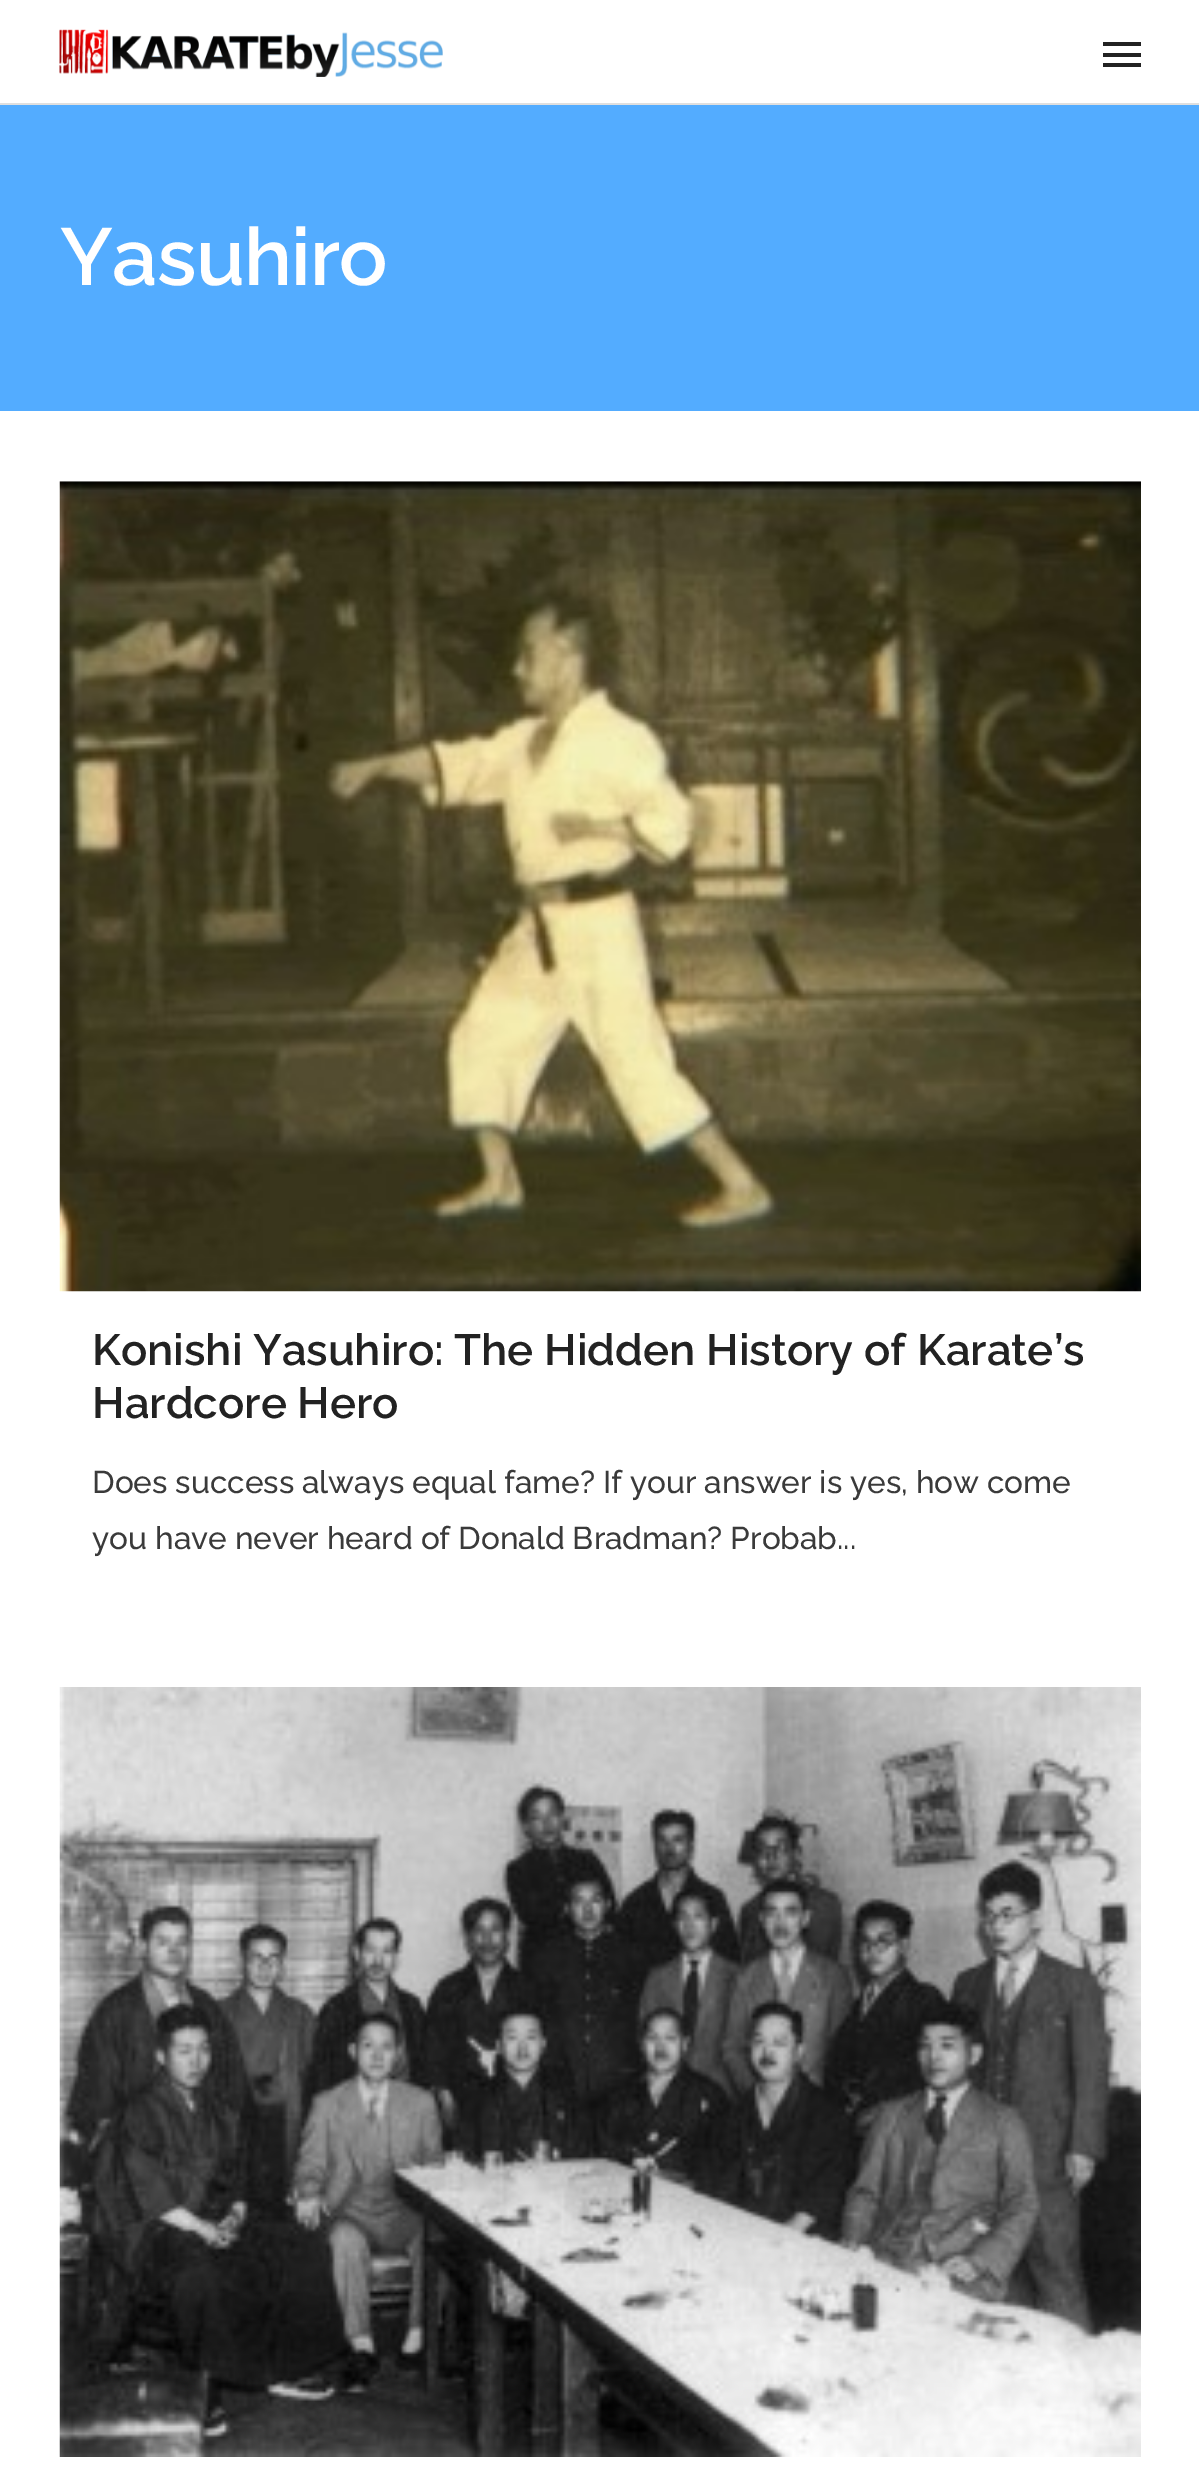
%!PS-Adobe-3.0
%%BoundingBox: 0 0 1199 2478
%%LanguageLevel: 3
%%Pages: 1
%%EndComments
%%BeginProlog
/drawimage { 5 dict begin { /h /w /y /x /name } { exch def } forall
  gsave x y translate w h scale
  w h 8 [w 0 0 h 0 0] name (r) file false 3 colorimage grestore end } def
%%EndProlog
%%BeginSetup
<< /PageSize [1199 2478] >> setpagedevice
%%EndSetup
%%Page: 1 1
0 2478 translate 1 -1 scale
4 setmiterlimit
1 setgray
0 0 1199 2478 rectfill
0.875 setgray
0 103 1199 2 rectfill
(images/1.raw) 59 29 384 48 drawimage
0.133 setgray
1103 53 38 4 rectfill
1103 42 38 4 rectfill
1103 63 38 4 rectfill
0.325 0.675 1 setrgbcolor
0 105 1199 306 rectfill
(images/2.raw) 59 481 1082 811 drawimage
(images/3.raw) 59 1687 1082 770 drawimage
/Raleway-SemiBold [80.5 0 0 -80.5 0 0] selectfont
1 setgray
60 285 moveto -0.75 0 (Yasuhiro) ashow
/Raleway-SemiBold [43.75 0 0 -43.75 0 0] selectfont
0.133 setgray
92 1365 moveto (Konishi Yasuhiro: The Hidden History of Karate’s) show
92 1418 moveto (Hardcore Hero) show
/Raleway-Medium [31.5 0 0 -31.5 0 0] selectfont
0.227 setgray
92 1493 moveto (Does success always equal fame? If your answer is yes, how come) show
92 1549 moveto (you have never heard of Donald Bradman? Probab...) show
showpage
%%EOF
